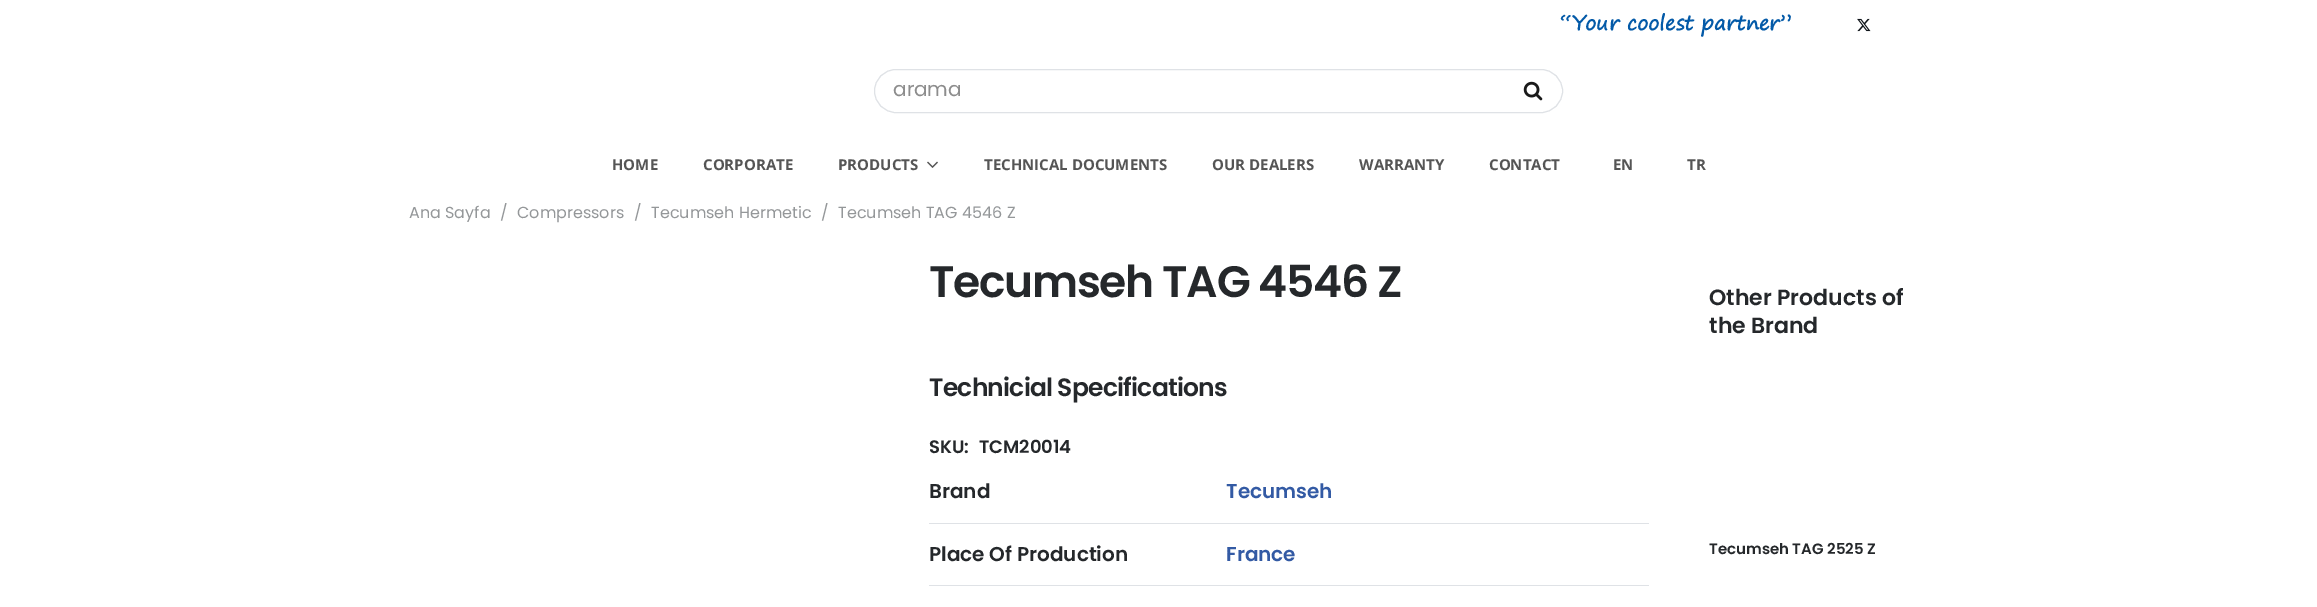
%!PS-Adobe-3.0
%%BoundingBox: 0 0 2317 607
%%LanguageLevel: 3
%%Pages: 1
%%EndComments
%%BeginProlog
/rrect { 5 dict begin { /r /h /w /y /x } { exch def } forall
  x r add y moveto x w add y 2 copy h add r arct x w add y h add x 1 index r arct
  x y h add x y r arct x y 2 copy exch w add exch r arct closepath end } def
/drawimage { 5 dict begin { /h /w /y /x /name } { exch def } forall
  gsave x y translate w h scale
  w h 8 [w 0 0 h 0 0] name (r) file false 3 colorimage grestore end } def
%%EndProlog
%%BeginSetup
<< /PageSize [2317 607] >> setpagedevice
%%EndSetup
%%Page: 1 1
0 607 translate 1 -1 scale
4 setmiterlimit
1 setgray
0 0 2317 607 rectfill
(images/1.raw) 1857 18 14 14 drawimage
0.875 0.886 0.902 setrgbcolor
874.5 69.5 688 43 21.5 rrect stroke
(images/2.raw) 1523 81 20 20 drawimage
(images/3.raw) 927 161 11 7 drawimage
929 523 720 1 rectfill
929 585 720 1 rectfill
/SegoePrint-Bold [20 0 0 -20 0 0] selectfont
0.012 0.353 0.659 setrgbcolor
1560 30 moveto (“Your coolest partner”) show
/Poppins-Regular [20 0 0 -20 0 0] selectfont
0.553 setgray
893 96 moveto (arama) show
/OpenSans-Bold [15 0 0 -15 0 0] selectfont
0.333 setgray
612 170 moveto (HOME) show
703 170 moveto (CORPORATE) show
838 170 moveto (PRODUCTS) show
984 170 moveto (TECHNICAL DOCUMENTS) show
1212 170 moveto (OUR DEALERS) show
1359 170 moveto (WARRANTY) show
1489 170 moveto (CONTACT) show
1613 170 moveto (EN) show
1687 170 moveto (TR) show
/Poppins-Regular [16 0 0 -16 0 0] selectfont
0.58 0.592 0.6 setrgbcolor
409 218 moveto (Ana Sayfa) show
500 218 moveto (/) show
517 218 moveto (Compressors) show
634 218 moveto (/) show
651 218 moveto (Tecumseh Hermetic) show
821 218 moveto (/) show
838 218 moveto (Tecumseh TAG 4546 Z) show
/Poppins-SemiBold [44 0 0 -44 0 0] selectfont
0.145 0.157 0.169 setrgbcolor
929 297 moveto -1.3 0 (Tecumseh TAG 4546 Z) ashow
/Poppins-SemiBold [25 0 0 -25 0 0] selectfont
929 396 moveto -0.75 0 (Technicial Specifications) ashow
/Poppins-SemiBold [18 0 0 -18 0 0] selectfont
929 453 moveto (SKU:) show
979 453 moveto (TCM20014) show
/Poppins-SemiBold [20 0 0 -20 0 0] selectfont
929 498 moveto (Brand) show
0.2 0.353 0.643 setrgbcolor
1226 498 moveto (Tecumseh) show
0.145 0.157 0.169 setrgbcolor
929 561 moveto (Place Of Production) show
0.2 0.353 0.643 setrgbcolor
1226 561 moveto (France) show
/Poppins-SemiBold [22 0 0 -22 0 0] selectfont
0.145 0.157 0.169 setrgbcolor
1709 305 moveto (Other Products of) show
1709 333 moveto (the Brand) show
/Poppins-SemiBold [15 0 0 -15 0 0] selectfont
1709 554 moveto (Tecumseh TAG 2525 Z) show
showpage
%%EOF
